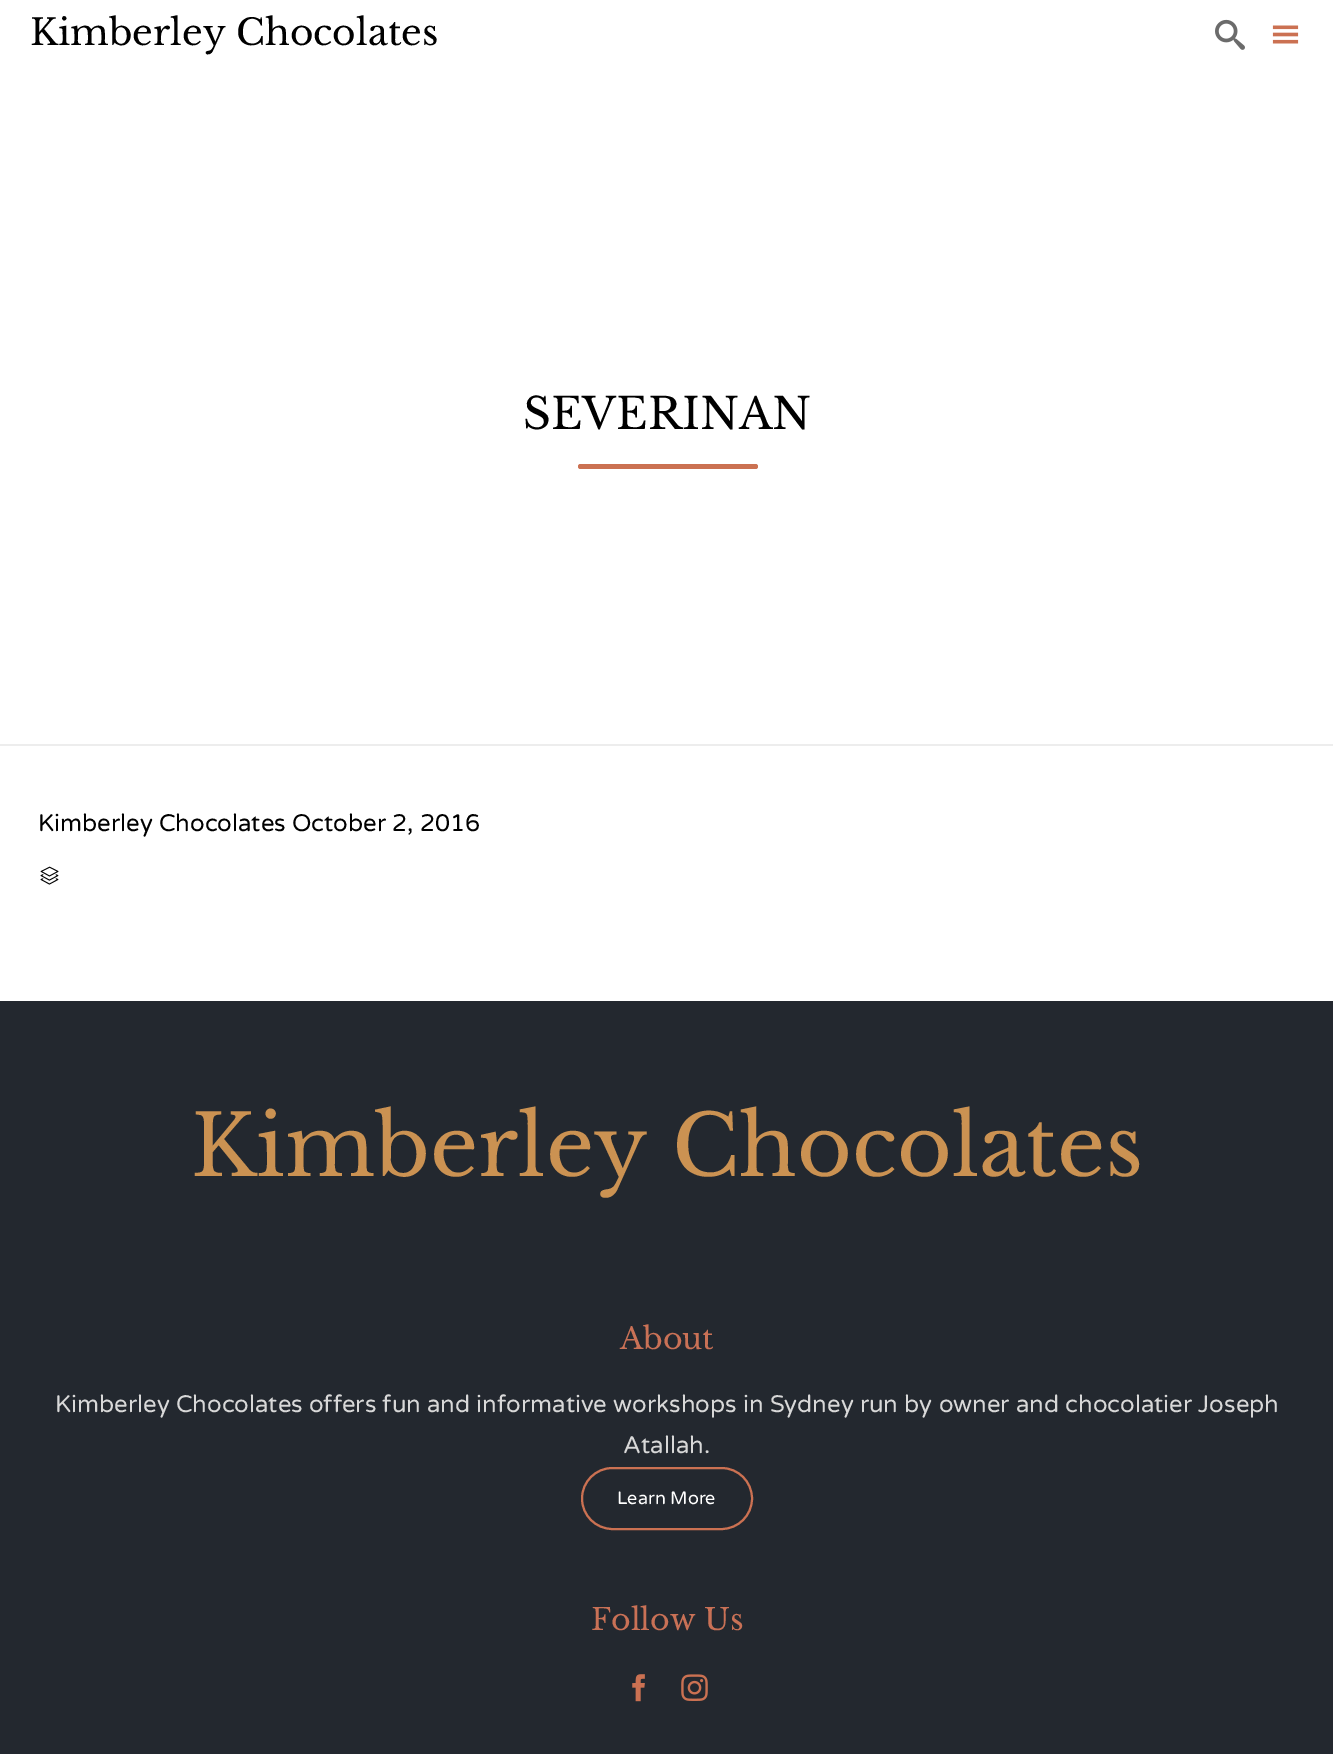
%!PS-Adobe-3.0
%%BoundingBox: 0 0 1333 1754
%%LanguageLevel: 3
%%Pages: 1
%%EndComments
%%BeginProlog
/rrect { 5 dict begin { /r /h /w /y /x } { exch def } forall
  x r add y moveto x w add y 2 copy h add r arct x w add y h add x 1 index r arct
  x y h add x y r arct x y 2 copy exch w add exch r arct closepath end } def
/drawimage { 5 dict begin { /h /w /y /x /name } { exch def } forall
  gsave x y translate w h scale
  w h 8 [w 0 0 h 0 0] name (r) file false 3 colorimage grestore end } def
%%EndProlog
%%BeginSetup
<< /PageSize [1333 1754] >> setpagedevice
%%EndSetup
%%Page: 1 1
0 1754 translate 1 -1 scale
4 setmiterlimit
1 setgray
0 0 1333 1754 rectfill
(images/1.raw) 1215 19 30 31 drawimage
(images/2.raw) 1272 25 27 19 drawimage
0.929 setgray
0 744 1333 2 rectfill
0.796 0.443 0.322 setrgbcolor
578 464 180 5 2.5 rrect fill
(images/3.raw) 40 866 19 19 drawimage
0.137 0.157 0.184 setrgbcolor
0 1001 1333 753 rectfill
0.796 0.443 0.322 setrgbcolor
2 setlinewidth
582 1468 170 61 30.5 rrect stroke
(images/4.raw) 632 1674 13 28 drawimage
(images/5.raw) 681 1674 27 27 drawimage
/LibreBaskerville-Regular [36 0 0 -36 0 0] selectfont
0 setgray
30 45 moveto (Kimberley Chocolates) show
/LibreBaskerville-Regular [43.25 0 0 -43.25 0 0] selectfont
523 429 moveto (SEVERINAN) show
/VarelaRound-Regular [24 0 0 -24 0 0] selectfont
38 831 moveto (Kimberley Chocolates October 2, 2016) show
/LibreBaskerville-Regular [84 0 0 -84 0 0] selectfont
0.796 0.573 0.322 setrgbcolor
191 1176 moveto (Kimberley Chocolates) show
/LibreBaskerville-Regular [30 0 0 -30 0 0] selectfont
0.788 0.443 0.337 setrgbcolor
620 1349 moveto (About) show
/VarelaRound-Regular [24 0 0 -24 0 0] selectfont
0.847 setgray
55 1412 moveto (Kimberley Chocolates offers fun and informative workshops in Sydney run by owner and chocolatier Joseph) show
623 1453 moveto (Atallah.) show
/VarelaRound-Regular [18 0 0 -18 0 0] selectfont
1 setgray
617 1504 moveto (Learn More) show
/LibreBaskerville-Regular [30 0 0 -30 0 0] selectfont
0.788 0.443 0.337 setrgbcolor
591 1630 moveto (Follow Us) show
showpage
%%EOF
